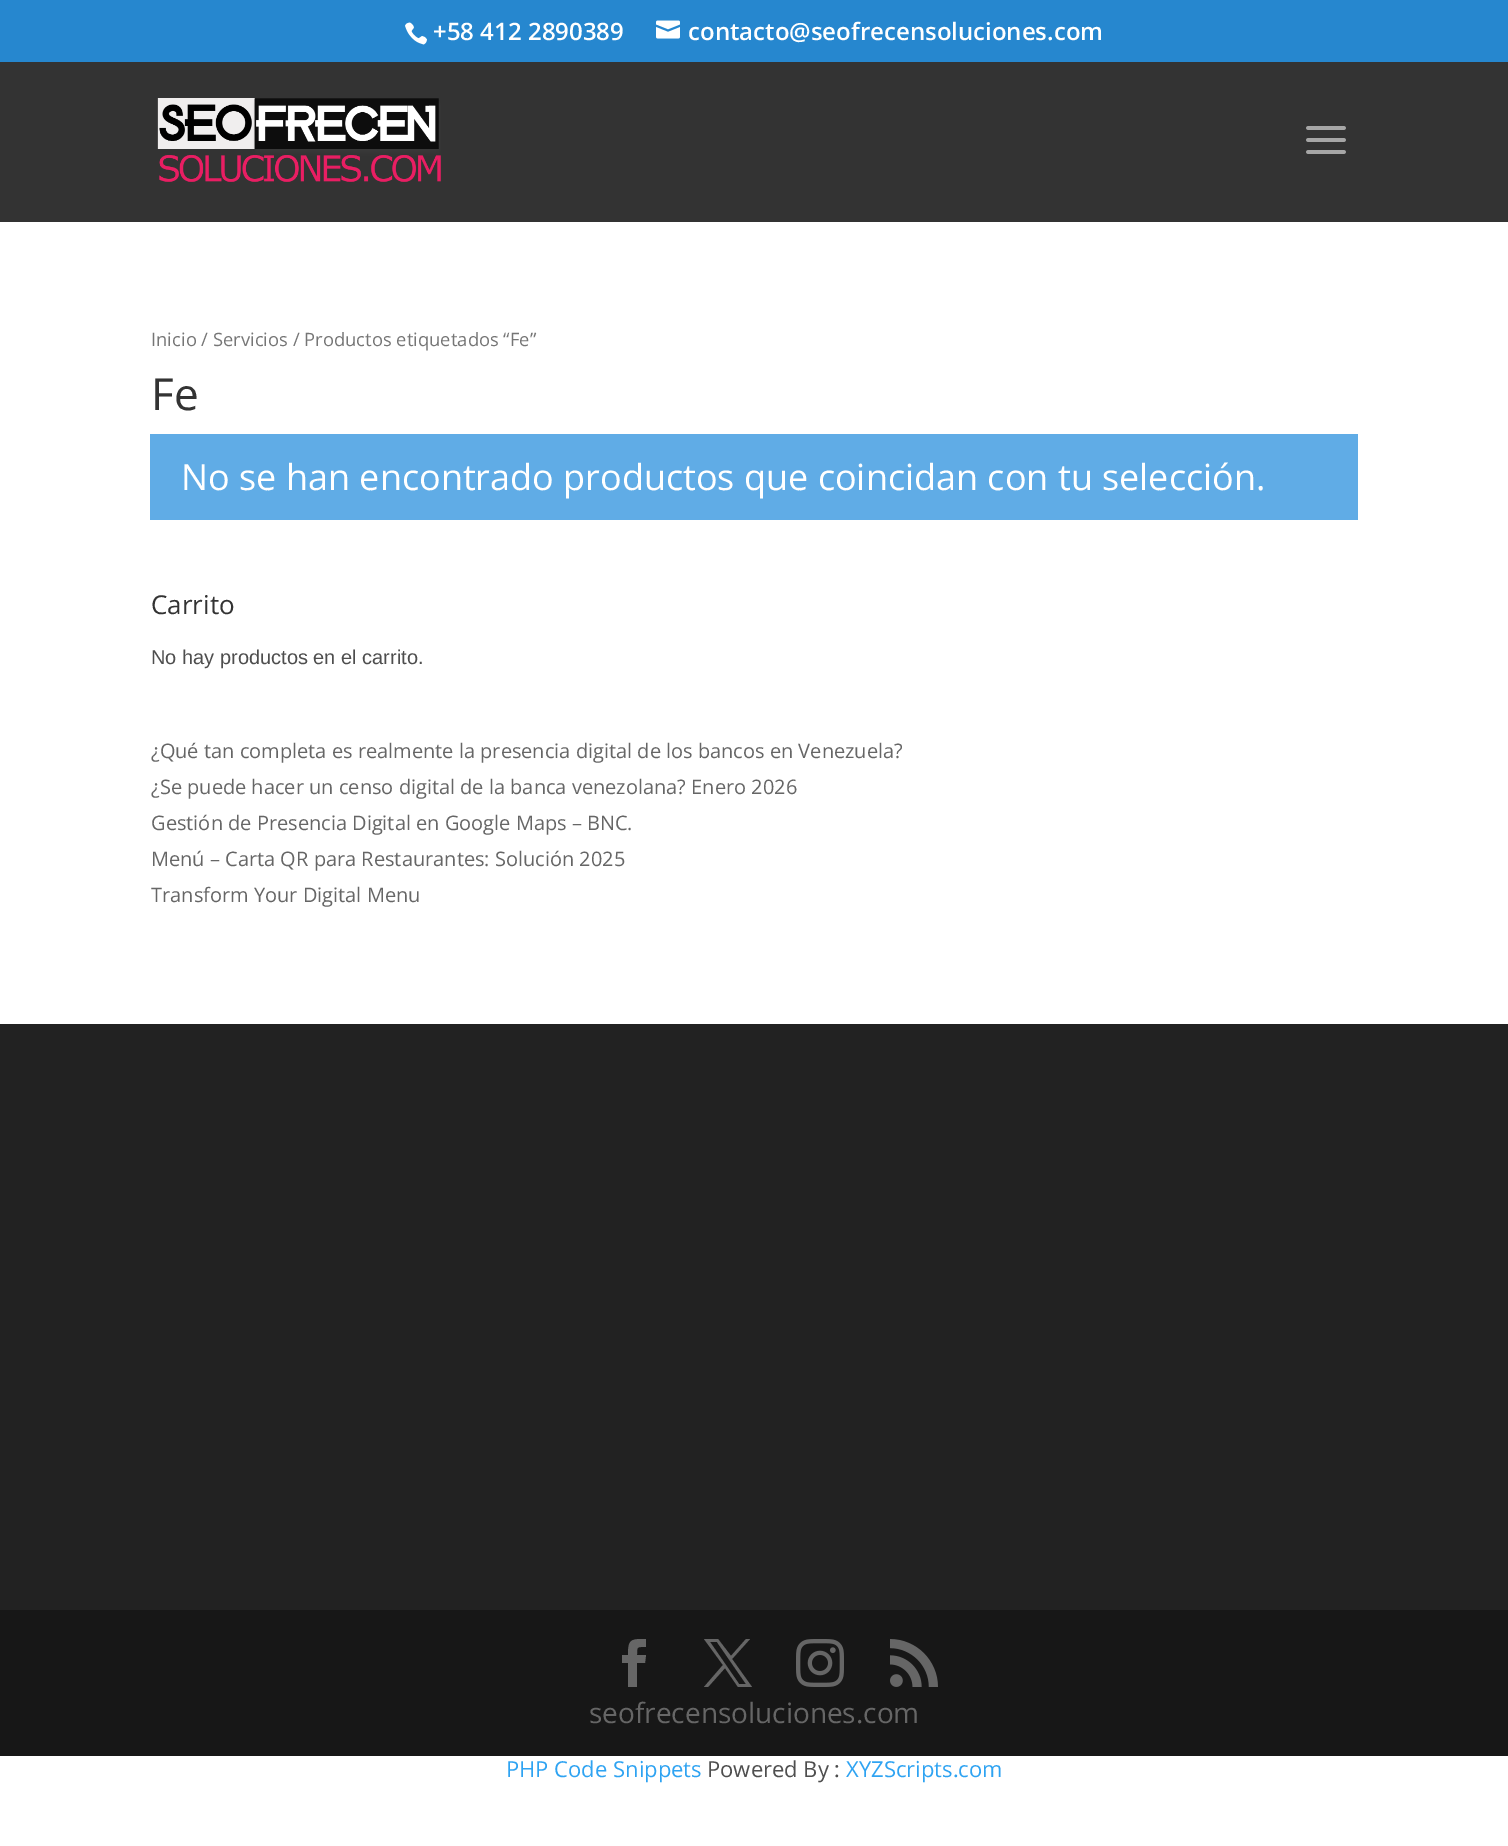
%!PS-Adobe-3.0
%%BoundingBox: 0 0 1508 1846
%%LanguageLevel: 3
%%Pages: 1
%%EndComments
%%BeginProlog
/drawimage { 5 dict begin { /h /w /y /x /name } { exch def } forall
  gsave x y translate w h scale
  w h 8 [w 0 0 h 0 0] name (r) file false 3 colorimage grestore end } def
%%EndProlog
%%BeginSetup
<< /PageSize [1508 1846] >> setpagedevice
%%EndSetup
%%Page: 1 1
0 1846 translate 1 -1 scale
4 setmiterlimit
1 setgray
0 0 1508 1846 rectfill
0.149 0.529 0.812 setrgbcolor
0 0 1508 62 rectfill
(images/1.raw) 405 22 22 23 drawimage
(images/2.raw) 656 20 24 19 drawimage
0.2 setgray
0 62 1508 160 rectfill
(images/3.raw) 157 98 284 84 drawimage
(images/4.raw) 1306 126 40 28 drawimage
0.376 0.675 0.902 setrgbcolor
150 434 1208 86 rectfill
0.133 setgray
0 1024 1508 586 rectfill
0.09 setgray
0 1610 1508 146 rectfill
0.4 setgray
newpath 628 1687 moveto 637 1687 lineto 637 1663 lineto 645 1663 lineto 646 1655 lineto 637 1655 lineto 637 1646 637 1647 646 1647 curveto 646 1639 lineto 631 1639 628 1639 628 1655 curveto 622 1655 lineto 622 1663 lineto 628 1663 lineto closepath fill
newpath 704 1639 moveto 723 1665 lineto 704 1687 lineto 708 1687 lineto 725 1668 lineto 738 1687 lineto 752 1687 lineto 732 1659 lineto 750 1639 lineto 746 1639 lineto 731 1656 lineto 718 1639 lineto closepath 710 1642 moveto 717 1642 lineto 746 1684 lineto 739 1684 lineto closepath fill
(images/5.raw) 796 1639 48 48 drawimage
(images/6.raw) 890 1639 48 48 drawimage
/OpenSans-SemiBold [24 0 0 -24 0 0] selectfont
1 setgray
433 40 moveto (+58 412 2890389) show
688 40 moveto (contacto@seofrecensoluciones.com) show
/OpenSans-Regular [18.4 0 0 -18.4 0 0] selectfont
0.463 setgray
151 346 moveto (Inicio / Servicios / Productos etiquetados “Fe”) show
/OpenSans-Regular [44 0 0 -44 0 0] selectfont
0.2 setgray
151 410 moveto (Fe) show
/OpenSans-Regular [36 0 0 -36 0 0] selectfont
1 setgray
181 490 moveto (No se han encontrado productos que coincidan con tu selección.) show
/OpenSans-Regular [26 0 0 -26 0 0] selectfont
0.2 setgray
151 614 moveto (Carrito) show
/LiberationSans-Regular [20 0 0 -20 0 0] selectfont
0.306 setgray
151 664 moveto (No hay productos en el carrito.) show
/OpenSans-Regular [20 0 0 -20 0 0] selectfont
0.4 setgray
151 758 moveto (¿Qué tan completa es realmente la presencia digital de los bancos en Venezuela?) show
151 794 moveto (¿Se puede hacer un censo digital de la banca venezolana? Enero 2026) show
151 830 moveto (Gestión de Presencia Digital en Google Maps – BNC.) show
151 866 moveto (Menú – Carta QR para Restaurantes: Solución 2025) show
151 902 moveto (Transform Your Digital Menu) show
/OpenSans-Regular [28 0 0 -28 0 0] selectfont
589 1723 moveto (seofrecensoluciones.com) show
/OpenSans-Regular [22 0 0 -22 0 0] selectfont
0.18 0.639 0.949 setrgbcolor
506 1777 moveto (PHP Code Snippets) show
0.306 setgray
707 1777 moveto (Powered By :) show
0.18 0.639 0.949 setrgbcolor
846 1777 moveto (XYZScripts.com) show
showpage
%%EOF
